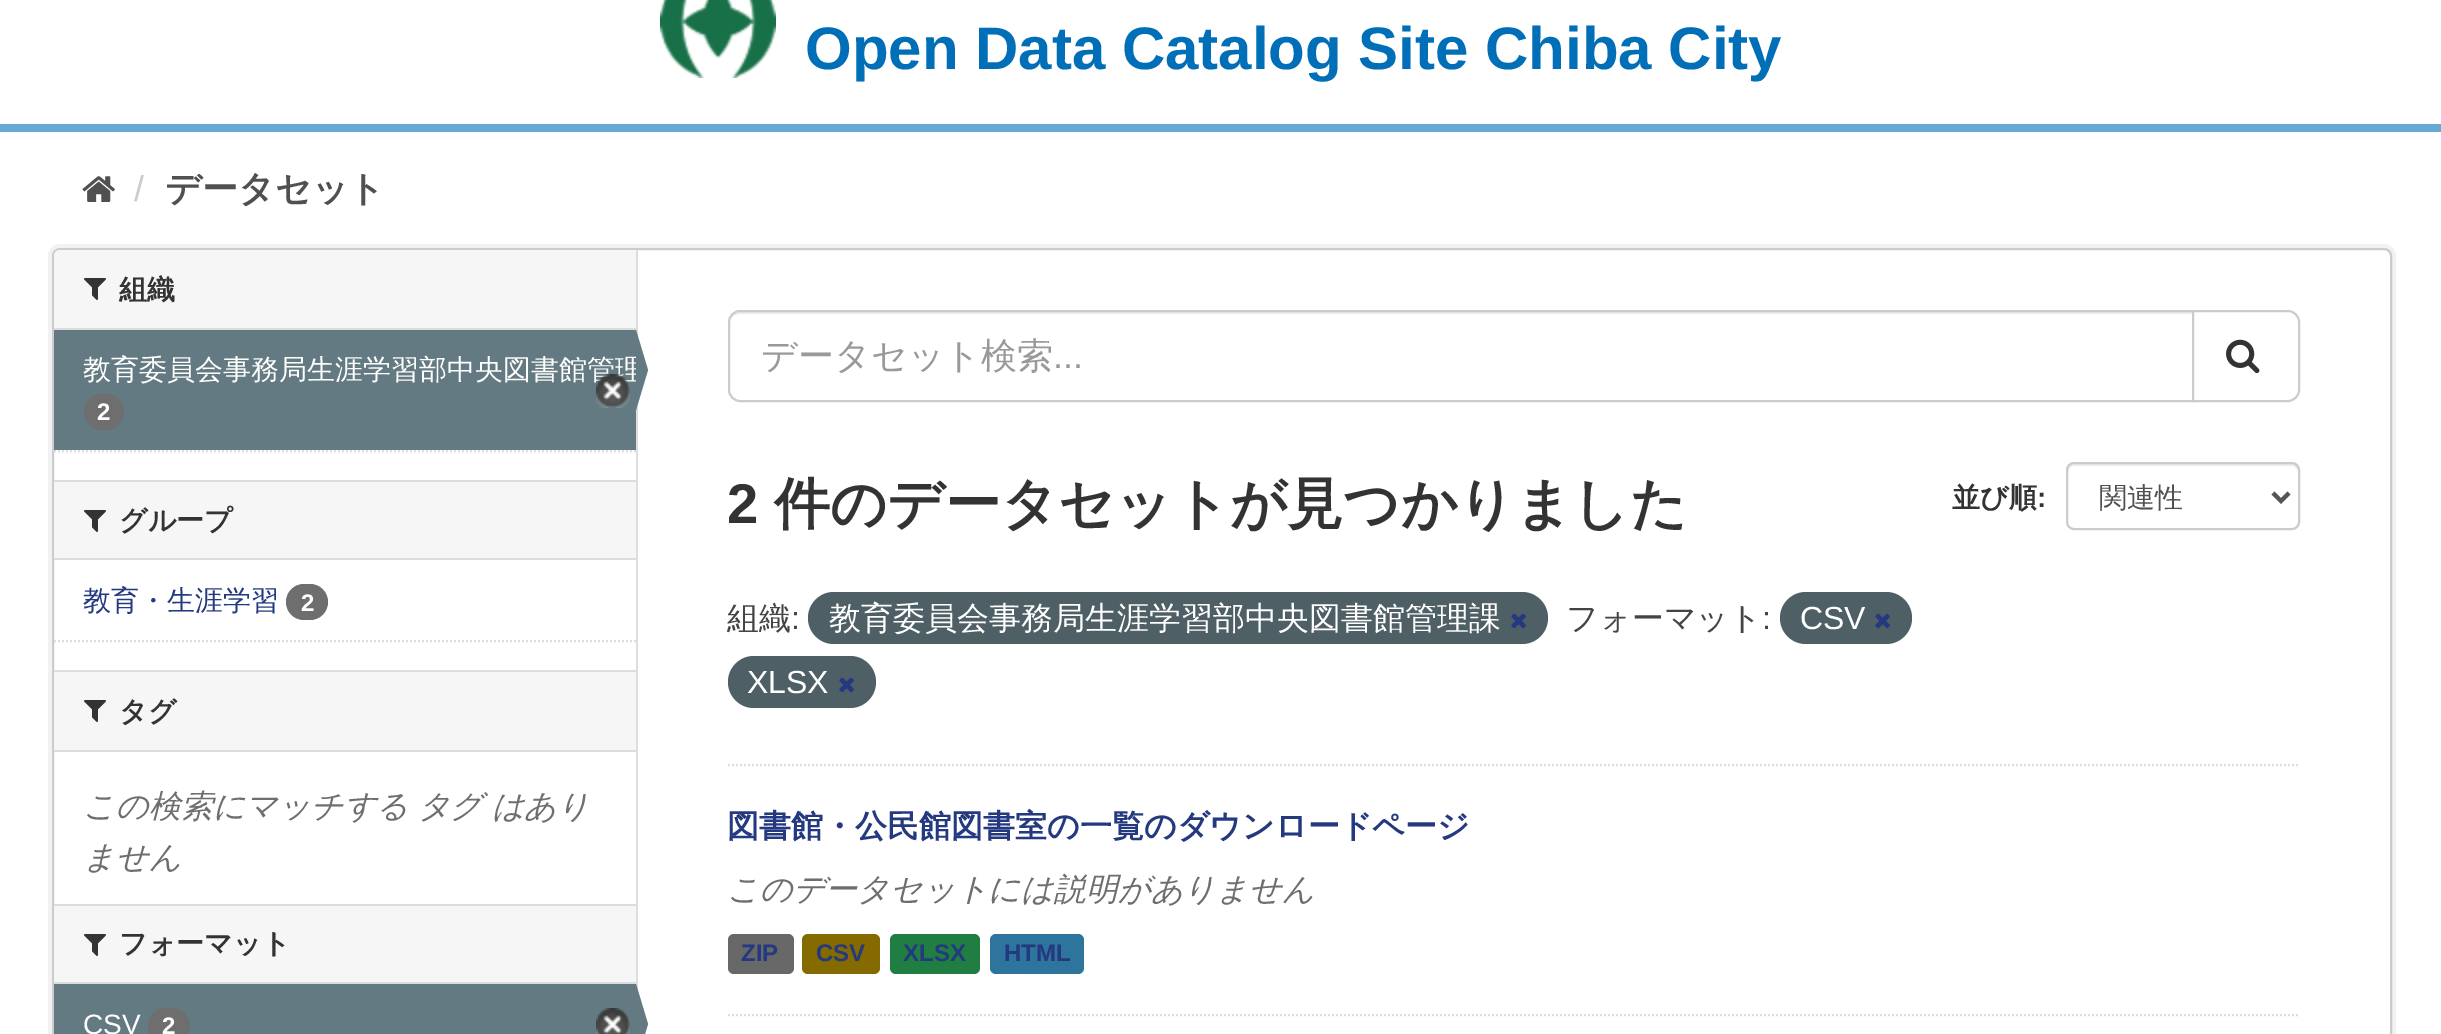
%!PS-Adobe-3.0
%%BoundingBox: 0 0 2441 1034
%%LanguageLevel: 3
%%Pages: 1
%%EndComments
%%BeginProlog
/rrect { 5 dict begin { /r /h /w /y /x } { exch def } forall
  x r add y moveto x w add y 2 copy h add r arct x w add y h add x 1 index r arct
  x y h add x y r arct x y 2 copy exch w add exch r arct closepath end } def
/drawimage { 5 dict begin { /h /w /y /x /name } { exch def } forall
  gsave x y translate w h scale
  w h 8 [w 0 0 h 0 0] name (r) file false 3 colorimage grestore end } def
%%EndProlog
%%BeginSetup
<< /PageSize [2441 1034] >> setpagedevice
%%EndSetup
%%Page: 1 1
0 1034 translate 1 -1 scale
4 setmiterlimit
1 setgray
0 0 2441 1034 rectfill
0.4 0.663 0.831 setrgbcolor
0 124 2441 8 rectfill
(images/1.raw) 660 0 116 78 drawimage
(images/2.raw) 82 176 33 26 drawimage
0.949 setgray
4 setlinewidth
50 246 2344 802 10 rrect stroke
1 setgray
53 249 2338 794 7 rrect gsave fill grestore
0.8 setgray
2 setlinewidth
stroke
0.867 setgray
636 250 2 741 rectfill
0.965 setgray
newpath 60 250 moveto 636 250 lineto 636 330 lineto 54 330 lineto 54 256 lineto 54 252.5 56.5 250 60 250 curveto closepath fill
0.867 setgray
54 328 582 2 rectfill
(images/3.raw) 84 278 22 22 drawimage
0.392 0.478 0.51 setrgbcolor
54 330 582 120 rectfill
0.431 setgray
84 394 40 36 18 rrect fill
0.867 setgray
[2 2] 0 setdash
newpath 54 451 moveto 636 451 lineto stroke
0.965 setgray
54 482 582 76 rectfill
0.867 setgray
54 480 582 2 rectfill
54 558 582 2 rectfill
(images/3.raw) 84 510 22 22 drawimage
0.431 setgray
286 584 42 36 18 rrect fill
0.867 setgray
newpath 54 641 moveto 636 641 lineto stroke
0.965 setgray
54 672 582 78 rectfill
0.867 setgray
54 670 582 2 rectfill
54 750 582 2 rectfill
(images/3.raw) 84 700 22 22 drawimage
0.965 setgray
54 906 582 76 rectfill
0.867 setgray
54 904 582 2 rectfill
54 982 582 2 rectfill
(images/3.raw) 84 934 22 22 drawimage
0.392 0.478 0.51 setrgbcolor
54 984 582 50 rectfill
0.431 setgray
148 1008 42 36 18 rrect fill
(images/5.raw) 596 1008 34 26 drawimage
0.392 0.478 0.51 setrgbcolor
newpath 636 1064 moveto 636 984 lineto 648 1024 lineto closepath fill
0.867 setgray
newpath 728 765 moveto 2300 765 lineto stroke
0.925 setgray
newpath 740 314 moveto 2192 314 lineto 2192 312 lineto 740 312 lineto 733 312 730 318 730 324 curveto 730 318 734 314 740 314 curveto closepath fill
0.8 setgray
[] 0 setdash
newpath 740 311 moveto 2193 311 lineto 2193 401 lineto 740 401 lineto 734 401 729 396 729 390 curveto 729 322 lineto 729 316 734 311 740 311 curveto closepath stroke
1 setgray
newpath 2193 311 moveto 2288 311 lineto 2294 311 2299 316 2299 322 curveto 2299 390 lineto 2299 396 2294 401 2288 401 curveto 2193 401 lineto closepath gsave fill grestore
0.8 setgray
stroke
(images/6.raw) 2226 339 34 35 drawimage
0.925 setgray
newpath 2074 466 moveto 2292 466 lineto 2295 466 2298 469 2298 472 curveto 2298 470 lineto 2298 467 2295 464 2292 464 curveto 2074 464 lineto 2071 464 2068 467 2068 470 curveto 2068 472 lineto 2068 469 2071 466 2074 466 curveto closepath fill
0.8 setgray
2067 463 232 66 7 rrect stroke
0.333 setgray
4 setlinewidth
newpath 2273 493 moveto 2281 501 lineto 2289 493 lineto stroke
0.306 0.373 0.396 setrgbcolor
808 592 740 52 26 rrect fill
(images/7.raw) 1511 613 15 16 drawimage
1780 592 132 52 26 rrect fill
(images/7.raw) 1875 613 15 16 drawimage
728 656 148 52 26 rrect fill
(images/7.raw) 839 677 15 16 drawimage
0.867 setgray
2 setlinewidth
[2 2] 0 setdash
newpath 728 1015 moveto 2300 1015 lineto stroke
0.408 setgray
728 934 66 40 6 rrect fill
0.522 0.416 0 setrgbcolor
802 934 78 40 6 rrect fill
0.125 0.494 0.259 setrgbcolor
890 934 90 40 6 rrect fill
0.18 0.459 0.62 setrgbcolor
990 934 94 40 6 rrect fill
/LiberationSans-Bold [60 0 0 -60 0 0] selectfont
0 0.435 0.718 setrgbcolor
805 69 moveto (Open Data Catalog Site Chiba City) show
/LiberationSans-Regular [36 0 0 -36 0 0] selectfont
0.8 setgray
134 201 moveto (/) show
/WenQuanYiZenHei-Bold [36 0 0 -36 0 0] selectfont
0.314 setgray
165 201 moveto (データセット) show
/WenQuanYiZenHei-Bold [28 0 0 -28 0 0] selectfont
0.2 setgray
119 299 moveto (組織) show
/WenQuanYiZenHei-Medium [28 0 0 -28 0 0] selectfont
1 setgray
83 379 moveto (教育委員会事務局生涯学習部中央図書館管理) show
0.392 0.478 0.51 setrgbcolor
newpath 636 410 moveto 636 330 lineto 648 370 lineto closepath fill
(images/4.raw) 596 374 34 34 drawimage
/LiberationSans-Bold [24 0 0 -24 0 0] selectfont
1 setgray
97 420 moveto (2) show
/WenQuanYiZenHei-Bold [28 0 0 -28 0 0] selectfont
0.2 setgray
119 530 moveto (グループ) show
/WenQuanYiZenHei-Medium [28 0 0 -28 0 0] selectfont
0.141 0.224 0.498 setrgbcolor
83 610 moveto (教育・生涯学習) show
/LiberationSans-Bold [24 0 0 -24 0 0] selectfont
1 setgray
301 611 moveto (2) show
/WenQuanYiZenHei-Bold [28 0 0 -28 0 0] selectfont
0.2 setgray
119 721 moveto (タグ) show
/WenQuanYiZenHei-MediumItalic [32 0 0 -32 0 0] selectfont
0.431 setgray
83 817 moveto -1 0 32 (この検索にマッチする タグ はあり) widthshow
83 868 moveto (ません) show
/WenQuanYiZenHei-Bold [28 0 0 -28 0 0] selectfont
0.2 setgray
119 953 moveto (フォーマット) show
/LiberationSans-Regular [28 0 0 -28 0 0] selectfont
1 setgray
83 1034 moveto (CSV) show
/LiberationSans-Bold [24 0 0 -24 0 0] selectfont
162 1034 moveto (2) show
/WenQuanYiZenHei-Medium [36 0 0 -36 0 0] selectfont
0.6 setgray
761 368 moveto (データセット検索) show
/LiberationSans-Regular [36 0 0 -36 0 0] selectfont
1053 368 moveto (...) show
/LiberationSans-Bold [56 0 0 -56 0 0] selectfont
0.2 setgray
727 523 moveto (2) show
/WenQuanYiZenHei-Bold [56 0 0 -56 0 0] selectfont
774 523 moveto (件のデータセットが見つかりました) show
/WenQuanYiZenHei-Bold [28 0 0 -28 0 0] selectfont
1952 507 moveto (並び順) show
/LiberationSans-Bold [28 0 0 -28 0 0] selectfont
2037 507 moveto (:) show
/WenQuanYiZenHei-Medium [28 0 0 -28 0 0] selectfont
0.314 setgray
2099 507 moveto (関連性) show
/WenQuanYiZenHei-Medium [32 0 0 -32 0 0] selectfont
0.267 setgray
727 629 moveto (組織) show
/LiberationSans-Regular [32 0 0 -32 0 0] selectfont
791 629 moveto (:) show
/WenQuanYiZenHei-Medium [32 0 0 -32 0 0] selectfont
1 setgray
829 629 moveto (教育委員会事務局生涯学習部中央図書館管理課) show
0.267 setgray
1566 629 moveto (フォーマット) show
/LiberationSans-Regular [32 0 0 -32 0 0] selectfont
1762 629 moveto (:) show
1 setgray
1800 629 moveto (CSV) show
747 693 moveto (XLSX) show
/WenQuanYiZenHei-Bold [32 0 0 -32 0 0] selectfont
0.141 0.224 0.498 setrgbcolor
727 837 moveto (図書館・公民館図書室の一覧のダウンロードページ) show
/WenQuanYiZenHei-MediumItalic [32 0 0 -32 0 0] selectfont
0.431 setgray
727 900 moveto (このデータセットには説明がありません) show
/LiberationSans-Bold [24 0 0 -24 0 0] selectfont
0.141 0.224 0.498 setrgbcolor
741 961 moveto (ZIP) show
816 961 moveto (CSV) show
903 961 moveto (XLSX) show
1004 961 moveto (HTML) show
showpage
%%EOF
